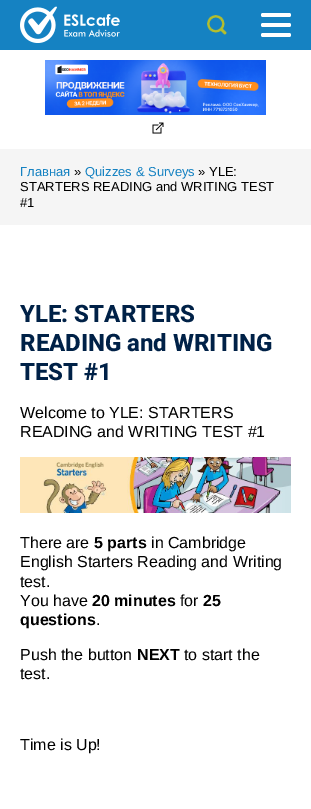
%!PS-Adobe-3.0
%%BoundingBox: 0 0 311 809
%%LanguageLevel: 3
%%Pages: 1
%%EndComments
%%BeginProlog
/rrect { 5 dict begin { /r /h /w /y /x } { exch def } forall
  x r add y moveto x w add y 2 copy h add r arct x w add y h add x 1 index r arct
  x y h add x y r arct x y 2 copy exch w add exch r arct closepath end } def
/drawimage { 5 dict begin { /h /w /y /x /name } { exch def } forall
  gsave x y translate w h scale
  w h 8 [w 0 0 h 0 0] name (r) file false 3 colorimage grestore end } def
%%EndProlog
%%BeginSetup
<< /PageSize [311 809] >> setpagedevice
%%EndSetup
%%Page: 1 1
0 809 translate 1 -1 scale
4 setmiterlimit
1 setgray
0 0 311 809 rectfill
0.082 0.51 0.761 setrgbcolor
0 0 311 50 rectfill
(images/1.raw) 20 6 100 37 drawimage
(images/2.raw) 207 15 20 20 drawimage
1 setgray
261 13 30 4 2 rrect fill
261 23 30 4 2 rrect fill
261 33 30 4 2 rrect fill
(images/3.raw) 45 60 221 55 drawimage
(images/4.raw) 152 122 12 12 drawimage
0.961 setgray
0 149 311 76 rectfill
(images/5.raw) 20 457 271 56 drawimage
/LiberationSans-Regular [13 0 0 -13 0 0] selectfont
0.082 0.51 0.761 setrgbcolor
20 176 moveto (Главная) show
0 setgray
74 176 moveto (») show
0.082 0.51 0.761 setrgbcolor
85 176 moveto (Quizzes & Surveys) show
0 setgray
198 176 moveto (» YLE:) show
20 191 moveto (STARTERS READING and WRITING TEST) show
20 207 moveto (#1) show
/Roboto-ExtraBold [24 0 0 -24 0 0] selectfont
0 0.129 0.278 setrgbcolor
20 322 moveto (YLE: STARTERS) show
20 351 moveto (READING and WRITING) show
20 380 moveto (TEST #1) show
/LiberationSans-Regular [16 0 0 -16 0 0] selectfont
0 setgray
20 418 moveto (Welcome to YLE: STARTERS) show
20 437 moveto (READING and WRITING TEST #1) show
20 548 moveto (There are) show
/LiberationSans-Bold [16 0 0 -16 0 0] selectfont
94 548 moveto (5 parts) show
/LiberationSans-Regular [16 0 0 -16 0 0] selectfont
151 548 moveto (in Cambridge) show
20 567 moveto (English Starters Reading and Writing) show
20 587 moveto (test.) show
20 606 moveto (You have) show
/LiberationSans-Bold [16 0 0 -16 0 0] selectfont
92 606 moveto (20 minutes) show
/LiberationSans-Regular [16 0 0 -16 0 0] selectfont
180 606 moveto (for) show
/LiberationSans-Bold [16 0 0 -16 0 0] selectfont
203 606 moveto (25) show
20 625 moveto (questions) show
/LiberationSans-Regular [16 0 0 -16 0 0] selectfont
96 625 moveto (.) show
20 660 moveto (Push the button) show
/LiberationSans-Bold [16 0 0 -16 0 0] selectfont
137 660 moveto (NEXT) show
/LiberationSans-Regular [16 0 0 -16 0 0] selectfont
184 660 moveto (to start the) show
20 679 moveto (test.) show
20 750 moveto (Time is Up!) show
showpage
%%EOF
